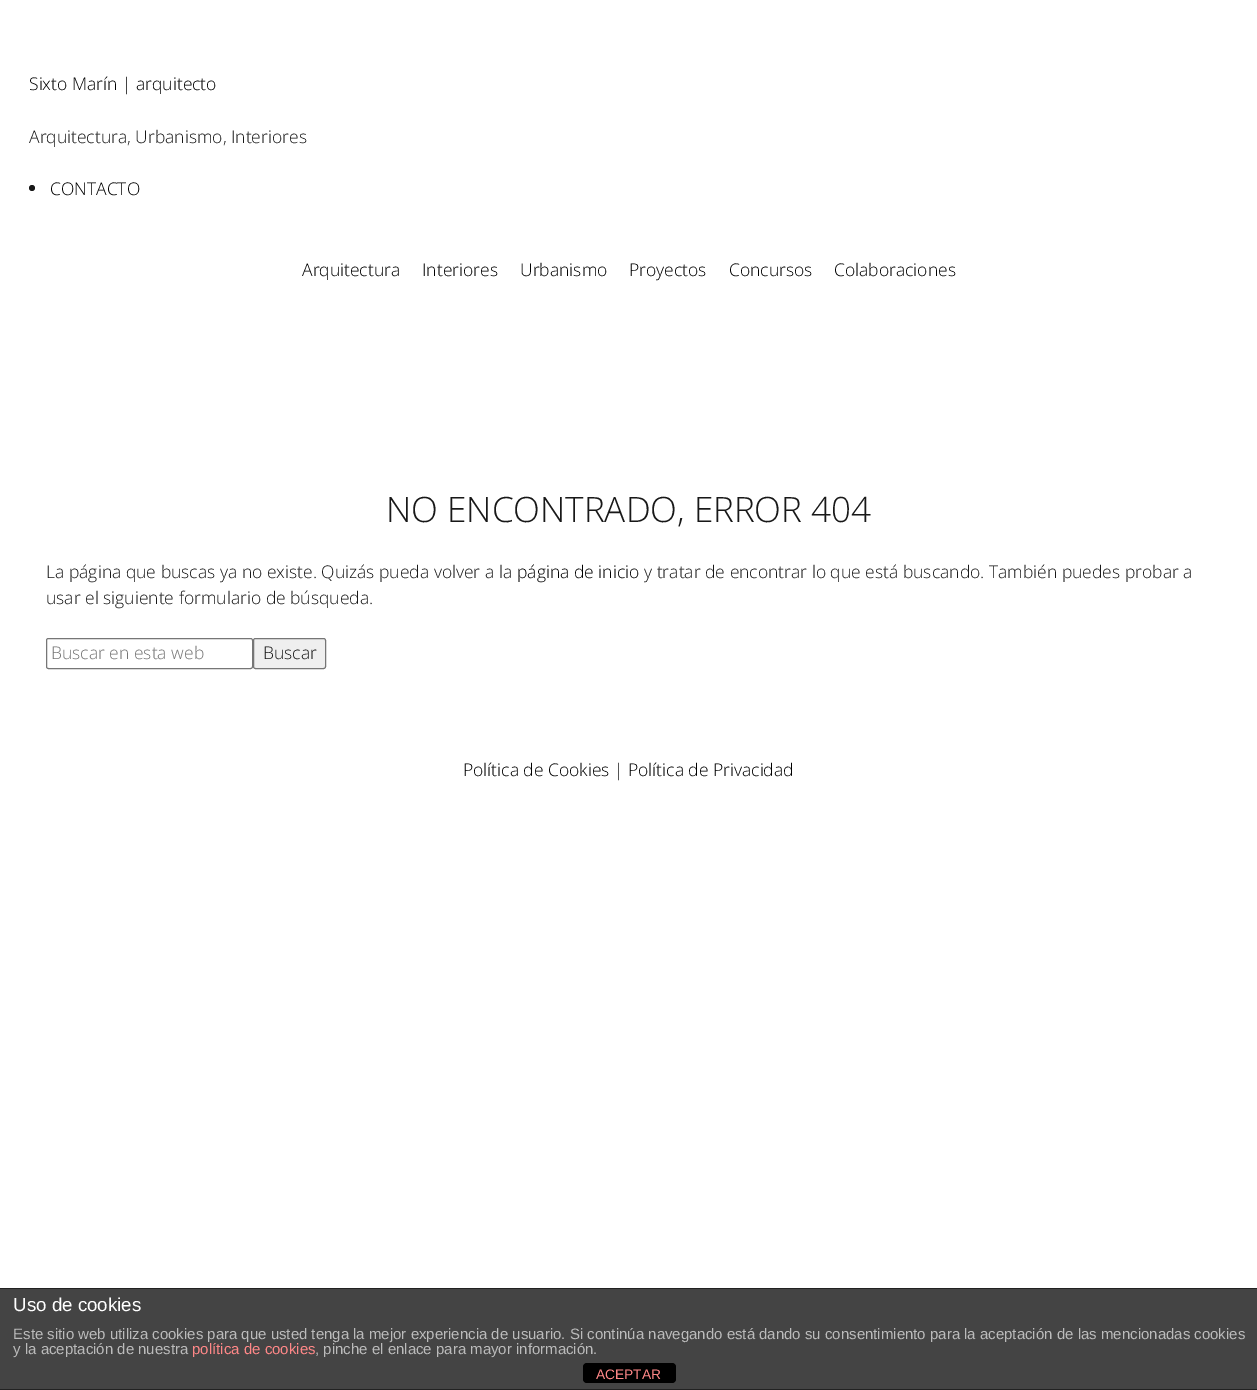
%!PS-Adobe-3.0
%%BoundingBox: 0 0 1257 1390
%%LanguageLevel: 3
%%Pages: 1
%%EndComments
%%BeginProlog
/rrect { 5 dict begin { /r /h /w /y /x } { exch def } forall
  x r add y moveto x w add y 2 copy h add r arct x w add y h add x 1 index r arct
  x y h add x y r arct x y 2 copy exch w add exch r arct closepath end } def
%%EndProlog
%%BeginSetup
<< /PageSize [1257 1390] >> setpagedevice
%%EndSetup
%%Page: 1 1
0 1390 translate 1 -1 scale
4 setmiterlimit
1 setgray
0 0 1257 1390 rectfill
0.094 setgray
newpath 32 188 3 0 360 arc closepath fill
0.463 setgray
46.5 638.5 206 30 2 rrect stroke
0.937 setgray
253.5 638.5 72 30 2 rrect gsave fill grestore
0.463 setgray
stroke
0.267 setgray
0 1289 1257 100 rectfill
0.133 setgray
0 1288 1257 1 rectfill
0 1389 1257 1 rectfill
0 setgray
583 1363 93 20 4 rrect fill
/OpenSans-Light [17.5 0 0 -17.5 0 0] selectfont
29 90 moveto (Sixto Marín | arquitecto) show
0.094 setgray
29 143 moveto (Arquitectura, Urbanismo, Interiores) show
0 setgray
50 195 moveto (CONTACTO) show
302 276 moveto (Arquitectura) show
422 276 moveto (Interiores) show
520 276 moveto (Urbanismo) show
629 276 moveto (Proyectos) show
729 276 moveto (Concursos) show
834 276 moveto (Colaboraciones) show
/OpenSans-Light [35 0 0 -35 0 0] selectfont
0.094 setgray
386 522 moveto (NO ENCONTRADO, ERROR 404) show
/OpenSans-Light [17.5 0 0 -17.5 0 0] selectfont
46 578 moveto (La página que buscas ya no existe. Quizás pueda volver a la) show
0 setgray
517 578 moveto (página de inicio) show
0.094 setgray
644 578 moveto (y tratar de encontrar lo que está buscando. También puedes probar a) show
46 604 moveto (usar el siguiente formulario de búsqueda.) show
0.459 setgray
51 659 moveto (Buscar en esta web) show
0.094 setgray
263 659 moveto (Buscar) show
0 setgray
463 776 moveto (Política de Cookies) show
0.094 setgray
614 776 moveto (|) show
0 setgray
628 776 moveto (Política de Privacidad) show
/LiberationSans-Regular [18.75 0 0 -18.75 0 0] selectfont
1 setgray
13 1311 moveto (Uso de cookies) show
/LiberationSans-Regular [15 0 0 -15 0 0] selectfont
0.733 setgray
13 1339 moveto (Este sitio web utiliza cookies para que usted tenga la mejor experiencia de usuario. Si continúa navegando está dando su consentimiento para la aceptación de las mencionadas cookies) show
13 1354 moveto (y la aceptación de nuestra) show
1 0.533 0.533 setrgbcolor
192 1354 moveto (política de cookies) show
0.733 setgray
315 1354 moveto (, pinche el enlace para mayor información.) show
/LiberationSans-Regular [13.75 0 0 -13.75 0 0] selectfont
1 0.533 0.533 setrgbcolor
596 1379 moveto (ACEPTAR) show
showpage
%%EOF
